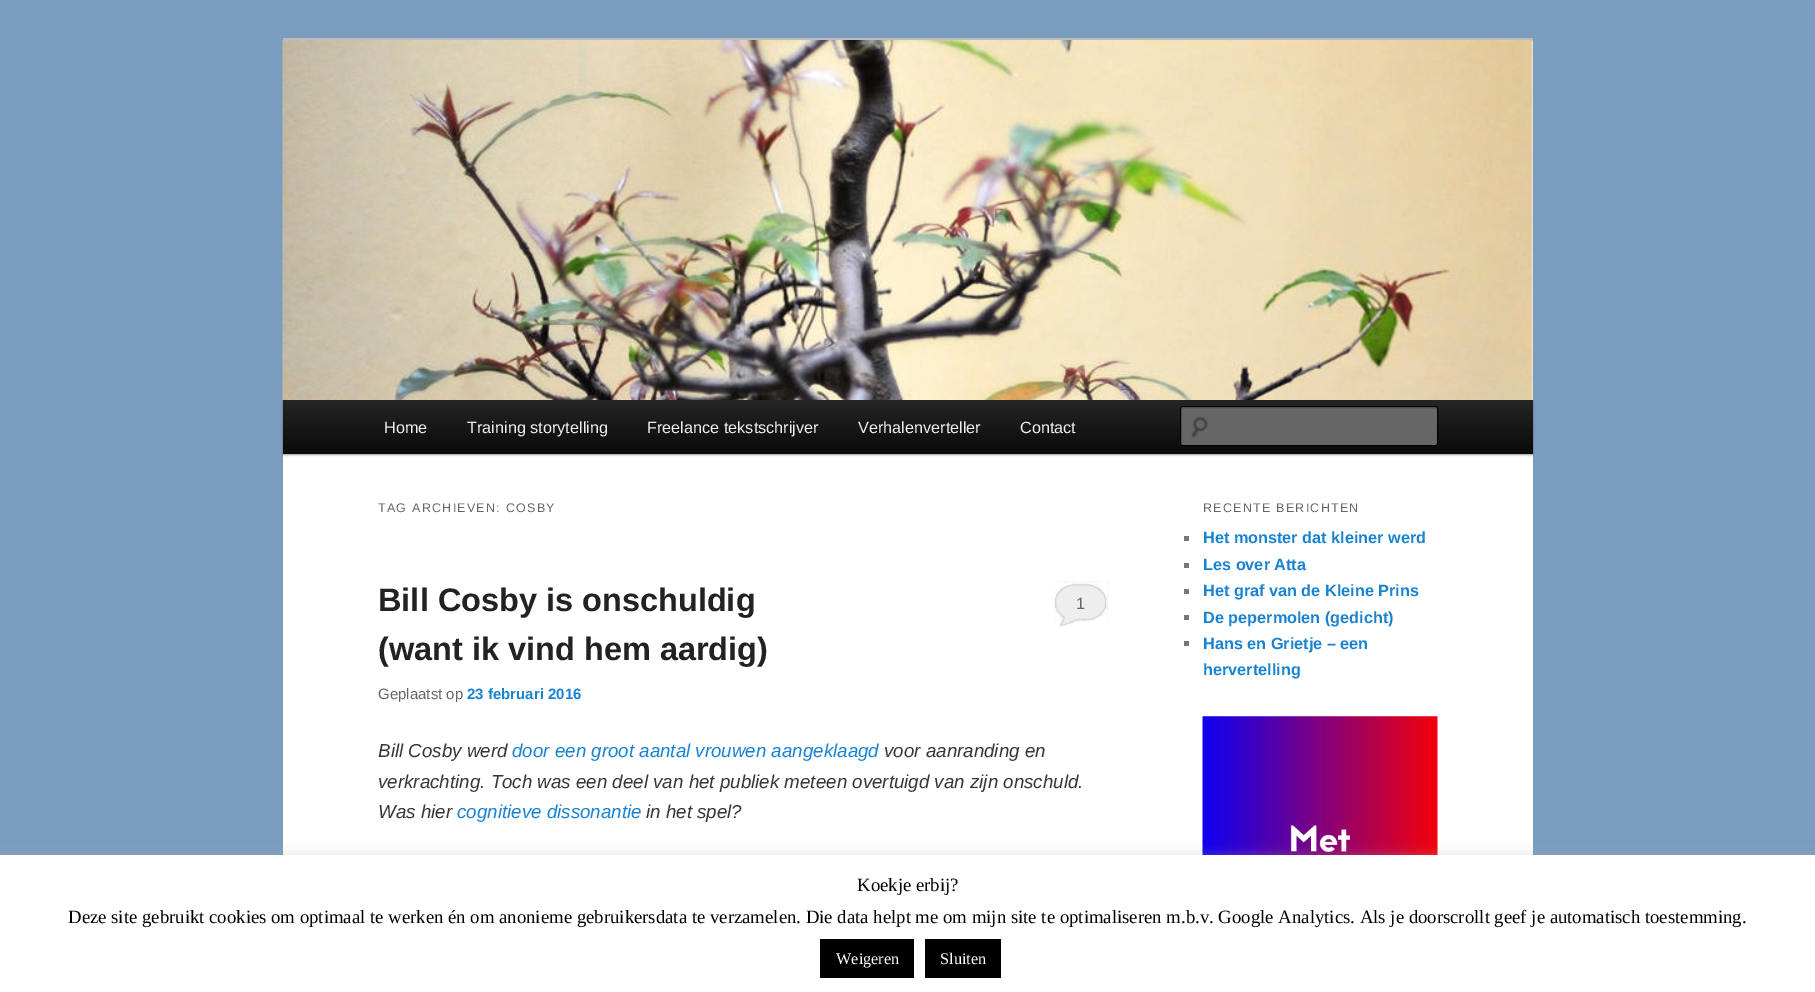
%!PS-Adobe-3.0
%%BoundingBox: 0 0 1815 992
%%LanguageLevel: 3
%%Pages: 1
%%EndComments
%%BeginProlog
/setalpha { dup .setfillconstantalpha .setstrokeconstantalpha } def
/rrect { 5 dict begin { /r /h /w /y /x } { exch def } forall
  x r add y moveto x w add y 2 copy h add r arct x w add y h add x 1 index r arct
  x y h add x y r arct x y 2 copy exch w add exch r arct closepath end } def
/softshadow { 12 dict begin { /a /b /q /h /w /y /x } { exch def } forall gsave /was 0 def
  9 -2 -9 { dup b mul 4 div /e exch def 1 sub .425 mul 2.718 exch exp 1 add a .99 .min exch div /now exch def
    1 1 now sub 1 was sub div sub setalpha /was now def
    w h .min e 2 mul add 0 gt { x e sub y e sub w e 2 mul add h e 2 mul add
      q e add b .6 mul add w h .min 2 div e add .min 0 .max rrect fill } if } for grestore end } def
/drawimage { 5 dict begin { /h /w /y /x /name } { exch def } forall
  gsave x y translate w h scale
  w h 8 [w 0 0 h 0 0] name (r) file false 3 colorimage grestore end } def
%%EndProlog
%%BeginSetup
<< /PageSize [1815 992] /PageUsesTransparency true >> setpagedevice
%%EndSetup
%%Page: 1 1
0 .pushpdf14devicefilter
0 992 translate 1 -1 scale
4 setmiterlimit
0.478 0.616 0.749 setrgbcolor
0 0 1815 992 rectfill
1 setgray
283 41 1250 814 rectfill
0.733 setgray
283 38 1250 3 rectfill
0 setgray
283 401 1250 54 0 1 0.4 softshadow
(images/1.raw) 282 40 1251 360 drawimage
gsave newpath 283 400 moveto 1533 400 lineto 1533 454 lineto 283 454 lineto closepath clip newpath
<< /ShadingType 2 /ColorSpace /DeviceRGB /Coords [908 400 908 454] /Extend [true true] /Function << /FunctionType 2 /Domain [0 1] /C0 [0.145 0.145 0.145] /C1 [0.039 0.039 0.039] /N 1 >> >> shfill grestore
0.4 setgray
1180 406 258 40 2.5 rrect fill
(images/2.raw) 1191 416 17 22 drawimage
0.361 setgray
newpath 1182 409 moveto 1435 409 lineto 1436 409 1436 409 1436 410 curveto 1436 408 lineto 1182 408 lineto 1181 408 1181 409 1181 410 curveto closepath fill
0 setgray
1180.5 406.5 257 39 2 rrect stroke
0.933 setgray
1054 581 54 45 rectfill
(images/3.raw) 1054 581 54 46 drawimage
0.467 setgray
1184 536 5 5 rectfill
1184 563 5 5 rectfill
1184 589 5 5 rectfill
1184 615 5 5 rectfill
1184 641 5 5 rectfill
(images/4.raw) 1202 716 236 139 drawimage
0.675 0.671 0.671 setrgbcolor
0 854 1815 137 0 6 0.3 softshadow
1 setgray
0 855 1815 137 rectfill
0 setgray
820 939 94 39 rectfill
925 939 76 39 rectfill
/LiberationSans-Regular [16.25 0 0 -16.25 0 0] selectfont
0.933 setgray
384 433 moveto (Home) show
467 433 moveto (Training storytelling) show
647 433 moveto (Freelance tekstschrijver) show
858 433 moveto (Verhalenverteller) show
1020 433 moveto (Contact) show
/LiberationSans-Regular [12.5 0 0 -12.5 0 0] selectfont
0.4 setgray
378 512 moveto 1.25 0 (TAG ARCHIEVEN: COSBY) ashow
/LiberationSans-Bold [32.5 0 0 -32.5 0 0] selectfont
0.133 setgray
378 611 moveto (Bill Cosby is onschuldig) show
378 660 moveto (\(want ik vind hem aardig\)) show
/LiberationSans-Regular [16.25 0 0 -16.25 0 0] selectfont
0.4 setgray
1076 609 moveto (1) show
/LiberationSans-Regular [15 0 0 -15 0 0] selectfont
378 699 moveto (Geplaatst op) show
/LiberationSans-Bold [15 0 0 -15 0 0] selectfont
0.098 0.51 0.82 setrgbcolor
467 699 moveto (23 februari 2016) show
/LiberationSans-Italic [18.75 0 0 -18.75 0 0] selectfont
0.216 setgray
378 757 moveto (Bill Cosby werd) show
0.098 0.51 0.82 setrgbcolor
512 757 moveto (door een groot aantal vrouwen aangeklaagd) show
0.216 setgray
884 757 moveto (voor aanranding en) show
378 788 moveto (verkrachting. Toch was een deel van het publiek meteen overtuigd van zijn onschuld.) show
378 818 moveto (Was hier) show
0.098 0.51 0.82 setrgbcolor
457 818 moveto (cognitieve dissonantie) show
0.216 setgray
646 818 moveto (in het spel?) show
/LiberationSans-Regular [12.5 0 0 -12.5 0 0] selectfont
0.4 setgray
1203 512 moveto 1.25 0 (RECENTE BERICHTEN) ashow
/LiberationSans-Bold [16.25 0 0 -16.25 0 0] selectfont
0.098 0.51 0.82 setrgbcolor
1203 543 moveto (Het monster dat kleiner werd) show
1203 570 moveto (Les over Atta) show
1203 596 moveto (Het graf van de Kleine Prins) show
1203 623 moveto (De pepermolen \(gedicht\)) show
1203 649 moveto (Hans en Grietje – een) show
1203 675 moveto (hervertelling) show
/LiberationSerif-Regular [18.75 0 0 -18.75 0 0] selectfont
0 setgray
857 891 moveto (Koekje erbij?) show
68 923 moveto (Deze site gebruikt cookies om optimaal te werken én om anonieme gebruikersdata te verzamelen. Die data helpt me om mijn site te optimaliseren m.b.v. Google Analytics. Als je doorscrollt geef je automatisch toestemming.) show
/LiberationSerif-Regular [16.25 0 0 -16.25 0 0] selectfont
1 setgray
836 964 moveto (Weigeren) show
940 964 moveto (Sluiten) show
.poppdf14devicefilter showpage
%%EOF
